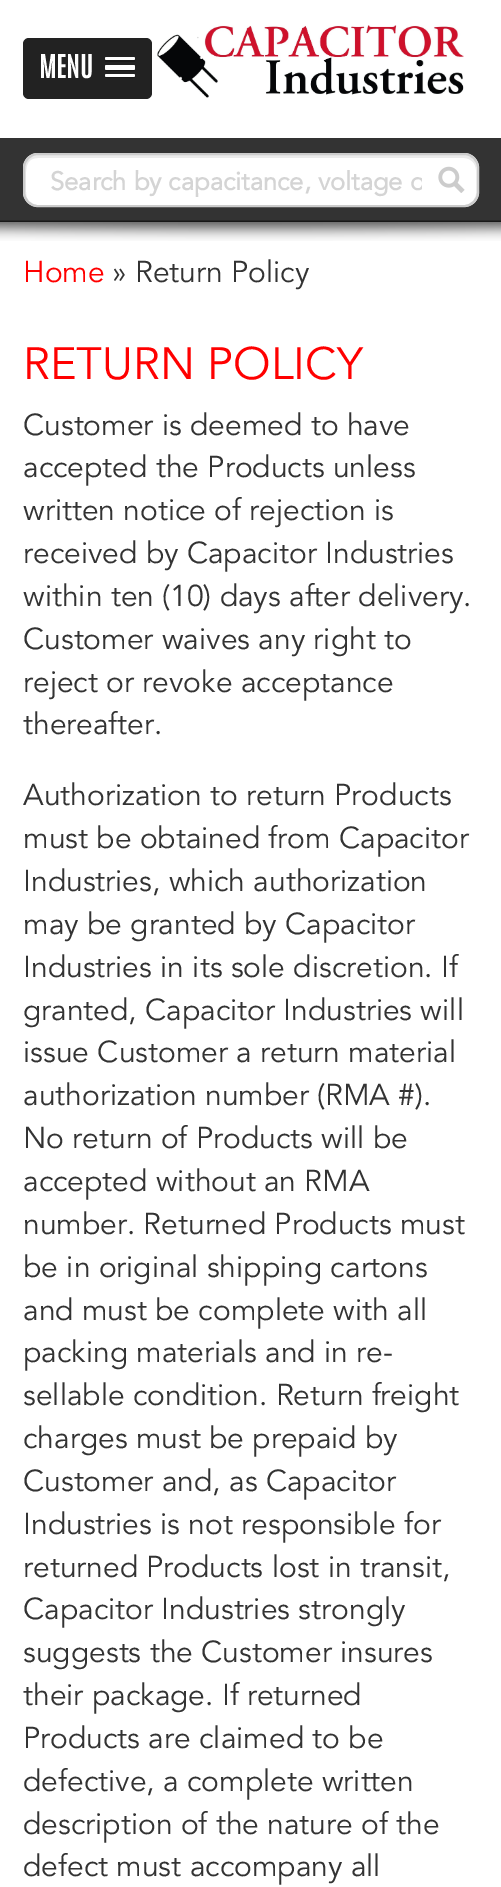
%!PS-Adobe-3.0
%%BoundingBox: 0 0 501 1887
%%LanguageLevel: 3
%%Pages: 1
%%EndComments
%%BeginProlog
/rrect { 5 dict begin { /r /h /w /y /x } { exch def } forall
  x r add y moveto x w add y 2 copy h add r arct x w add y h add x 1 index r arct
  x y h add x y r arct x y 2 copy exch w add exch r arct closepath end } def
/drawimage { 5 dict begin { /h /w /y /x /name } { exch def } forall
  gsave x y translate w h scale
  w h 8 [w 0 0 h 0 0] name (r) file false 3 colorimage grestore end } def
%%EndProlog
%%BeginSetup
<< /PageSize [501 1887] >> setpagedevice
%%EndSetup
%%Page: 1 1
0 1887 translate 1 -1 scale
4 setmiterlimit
1 setgray
0 0 501 1887 rectfill
0.133 setgray
23 38 129 61 6 rrect fill
0.102 setgray
newpath 105.5 59.5 moveto 104.5 60.5 105 62 106.5 62 curveto 133.5 62 lineto 135 62 135.5 60.5 134.5 59.5 curveto 133.5 60 lineto 106.5 60 lineto closepath fill
1 setgray
105 57 30 3 1.5 rrect fill
0.102 setgray
newpath 105 67.5 moveto 105 72 106 71 111 71 curveto 129 71 lineto 134 71 135 72 135 67.5 curveto 135 68.5 134.5 69 133.5 69 curveto 106.5 69 lineto 105.5 69 105 68.5 105 67.5 curveto closepath fill
1 setgray
105 65 30 5 1.5 rrect fill
0.102 setgray
newpath 105 75.5 moveto 103.5 78.5 108 78 111 78 curveto 129 78 lineto 132 78 136.5 78.5 135 75.5 curveto 133.5 76.5 lineto 106.5 76.5 lineto closepath fill
1 setgray
105 74 30 3 1.5 rrect fill
(images/1.raw) 157 25 307 73 drawimage
0.2 setgray
0 138 501 84 rectfill
1 setgray
23 153 456 54 15 rrect fill
0.922 setgray
newpath 38 158 moveto 464 158 lineto 470 158 476 163 476 170 curveto 476 194 lineto 476 198 473 202 469 204 curveto 474 202 477 197 477 192 curveto 477 169 lineto 477 161 471 155 463 155 curveto 38 155 lineto 30 155 24 161 24 169 curveto 24 192 lineto 24 200 30 206 38 206 curveto 24 206 26 191 26 182 curveto 26 172 24 158 38 158 curveto closepath fill
0.8 setgray
2 setlinewidth
24 154 454 52 14 rrect stroke
(images/2.raw) 438 166 27 27 drawimage
(images/3.raw) 0 220 501 21 drawimage
/Antonio-Bold [27 0 0 -27 0 0] selectfont
1 setgray
39 78 moveto (MENU) show
gsave
50 167 372 30 rectclip
/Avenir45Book-Bold [25.5 0 0 -25.5 0 0] selectfont
0.831 setgray
50 190 moveto (Search by capacitance, voltage o) show
grestore
/Avenir45Book-Regular [30 0 0 -30 0 0] selectfont
1 0 0 setrgbcolor
23 282 moveto (Home) show
0.2 setgray
112 282 moveto (» Return Policy) show
/Avenir45Book-Regular [45 0 0 -45 0 0] selectfont
1 0 0 setrgbcolor
23 379 moveto (RETURN POLICY) show
/Avenir45Book-Regular [30 0 0 -30 0 0] selectfont
0.2 setgray
23 435 moveto (Customer is deemed to have) show
23 477 moveto (accepted the Products unless) show
23 520 moveto (written notice of rejection is) show
23 563 moveto (received by Capacitor Industries) show
23 606 moveto (within ten \(10\) days after delivery.) show
23 649 moveto (Customer waives any right to) show
23 692 moveto (reject or revoke acceptance) show
23 734 moveto (thereafter.) show
23 805 moveto (Authorization to return Products) show
23 848 moveto (must be obtained from Capacitor) show
23 891 moveto (Industries, which authorization) show
23 934 moveto (may be granted by Capacitor) show
23 977 moveto (Industries in its sole discretion. If) show
23 1020 moveto (granted, Capacitor Industries will) show
23 1062 moveto (issue Customer a return material) show
23 1105 moveto (authorization number \(RMA #\).) show
23 1148 moveto (No return of Products will be) show
23 1191 moveto (accepted without an RMA) show
23 1234 moveto (number. Returned Products must) show
23 1277 moveto (be in original shipping cartons) show
23 1320 moveto (and must be complete with all) show
23 1362 moveto (packing materials and in re-) show
23 1405 moveto (sellable condition. Return freight) show
23 1448 moveto (charges must be prepaid by) show
23 1491 moveto (Customer and, as Capacitor) show
23 1534 moveto (Industries is not responsible for) show
23 1577 moveto (returned Products lost in transit,) show
23 1619 moveto (Capacitor Industries strongly) show
23 1662 moveto (suggests the Customer insures) show
23 1705 moveto (their package. If returned) show
23 1748 moveto (Products are claimed to be) show
23 1791 moveto (defective, a complete written) show
23 1834 moveto (description of the nature of the) show
23 1876 moveto (defect must accompany all) show
showpage
%%EOF
